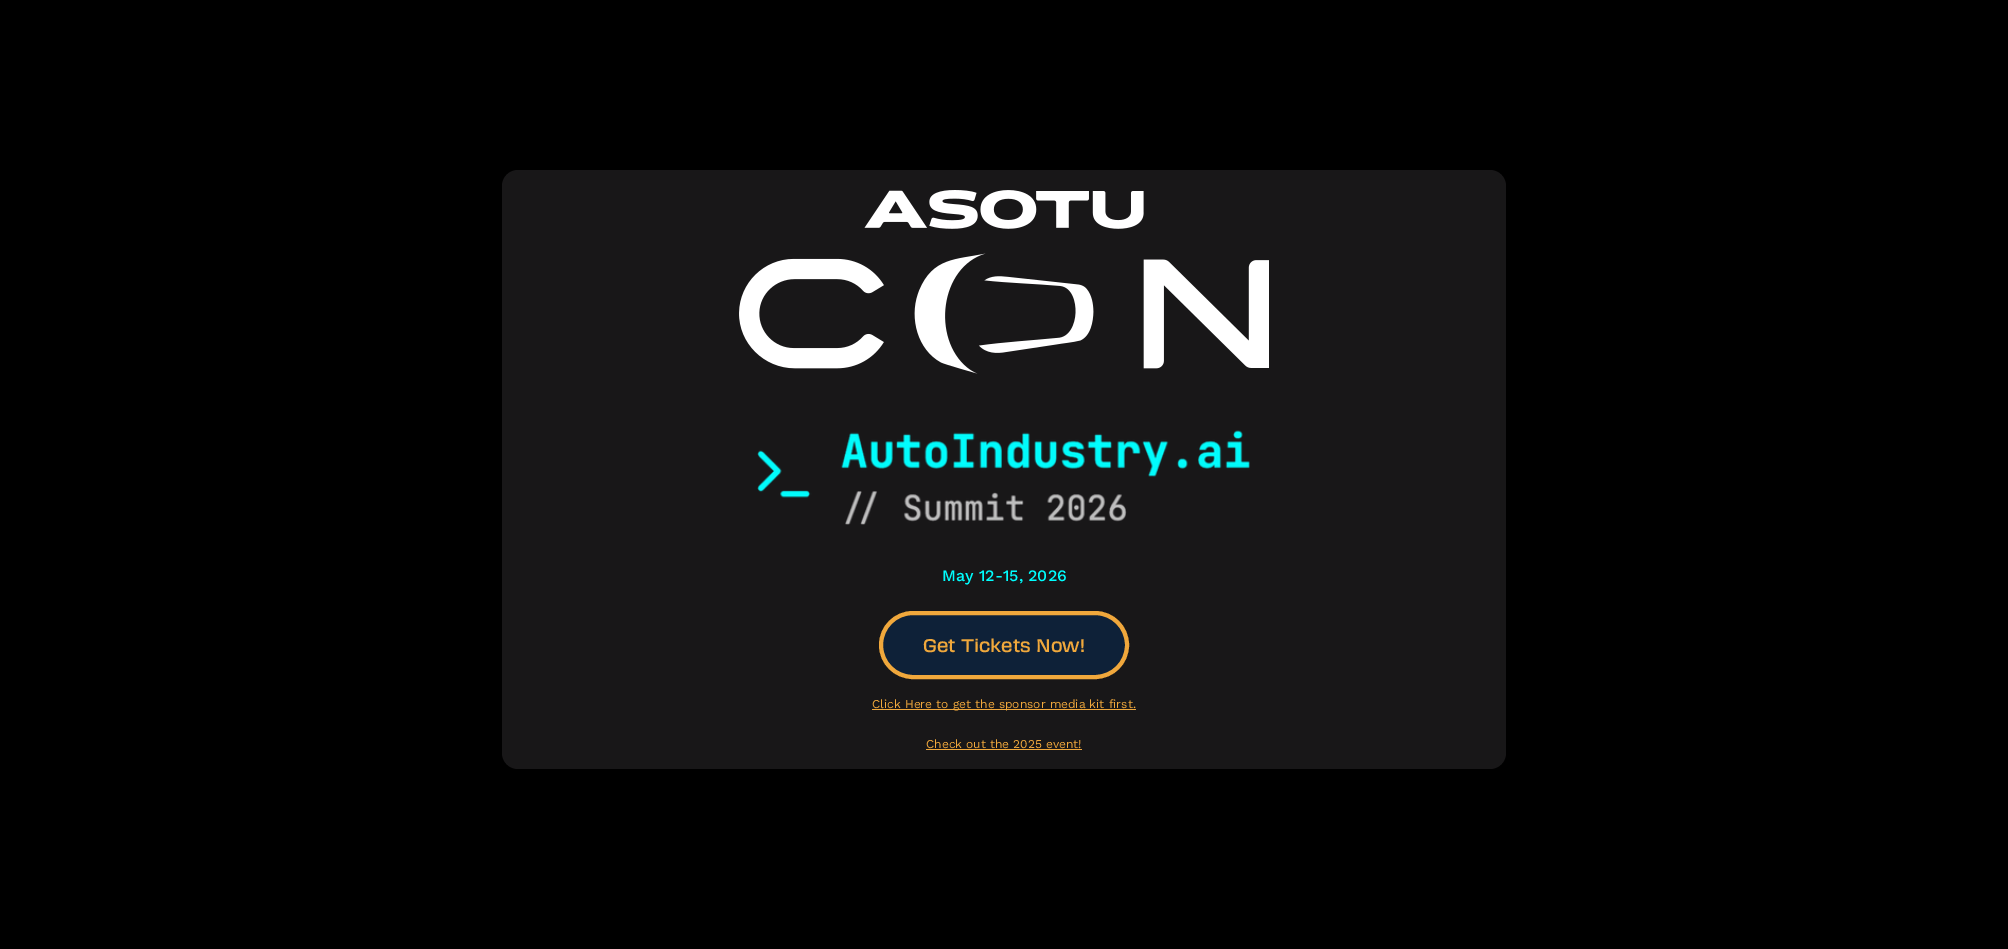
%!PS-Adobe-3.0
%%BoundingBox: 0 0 2008 949
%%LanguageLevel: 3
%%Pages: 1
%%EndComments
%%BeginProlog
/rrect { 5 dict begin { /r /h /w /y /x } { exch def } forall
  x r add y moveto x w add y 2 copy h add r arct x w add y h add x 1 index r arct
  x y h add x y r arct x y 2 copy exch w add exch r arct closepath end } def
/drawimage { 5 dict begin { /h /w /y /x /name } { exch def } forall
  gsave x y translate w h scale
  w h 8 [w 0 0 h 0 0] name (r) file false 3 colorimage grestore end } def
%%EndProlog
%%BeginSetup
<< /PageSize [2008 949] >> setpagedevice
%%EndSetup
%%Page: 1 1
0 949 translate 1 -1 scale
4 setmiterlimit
0 setgray
0 0 2008 949 rectfill
0.094 0.09 0.094 setrgbcolor
502 170 1004 599 16 rrect fill
(images/1.raw) 739 190 530 184 drawimage
(images/2.raw) 757 430 493 95 drawimage
0.055 0.129 0.22 setrgbcolor
881 613 246 64 32 rrect gsave fill grestore
0.941 0.659 0.235 setrgbcolor
4 setlinewidth
stroke
872 709 264 1 rectfill
926 749 156 1 rectfill
/WorkSans-Medium [16 0 0 -16 0 0] selectfont
0 0.996 0.996 setrgbcolor
942 581 moveto (May 12-15, 2026) show
/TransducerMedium-Medium [18 0 0 -18 0 0] selectfont
0.941 0.659 0.235 setrgbcolor
923 652 moveto (Get Tickets Now!) show
/WorkSans-Regular [12 0 0 -12 0 0] selectfont
872 708 moveto (Click Here to get the sponsor media kit first.) show
926 748 moveto (Check out the 2025 event!) show
showpage
%%EOF
